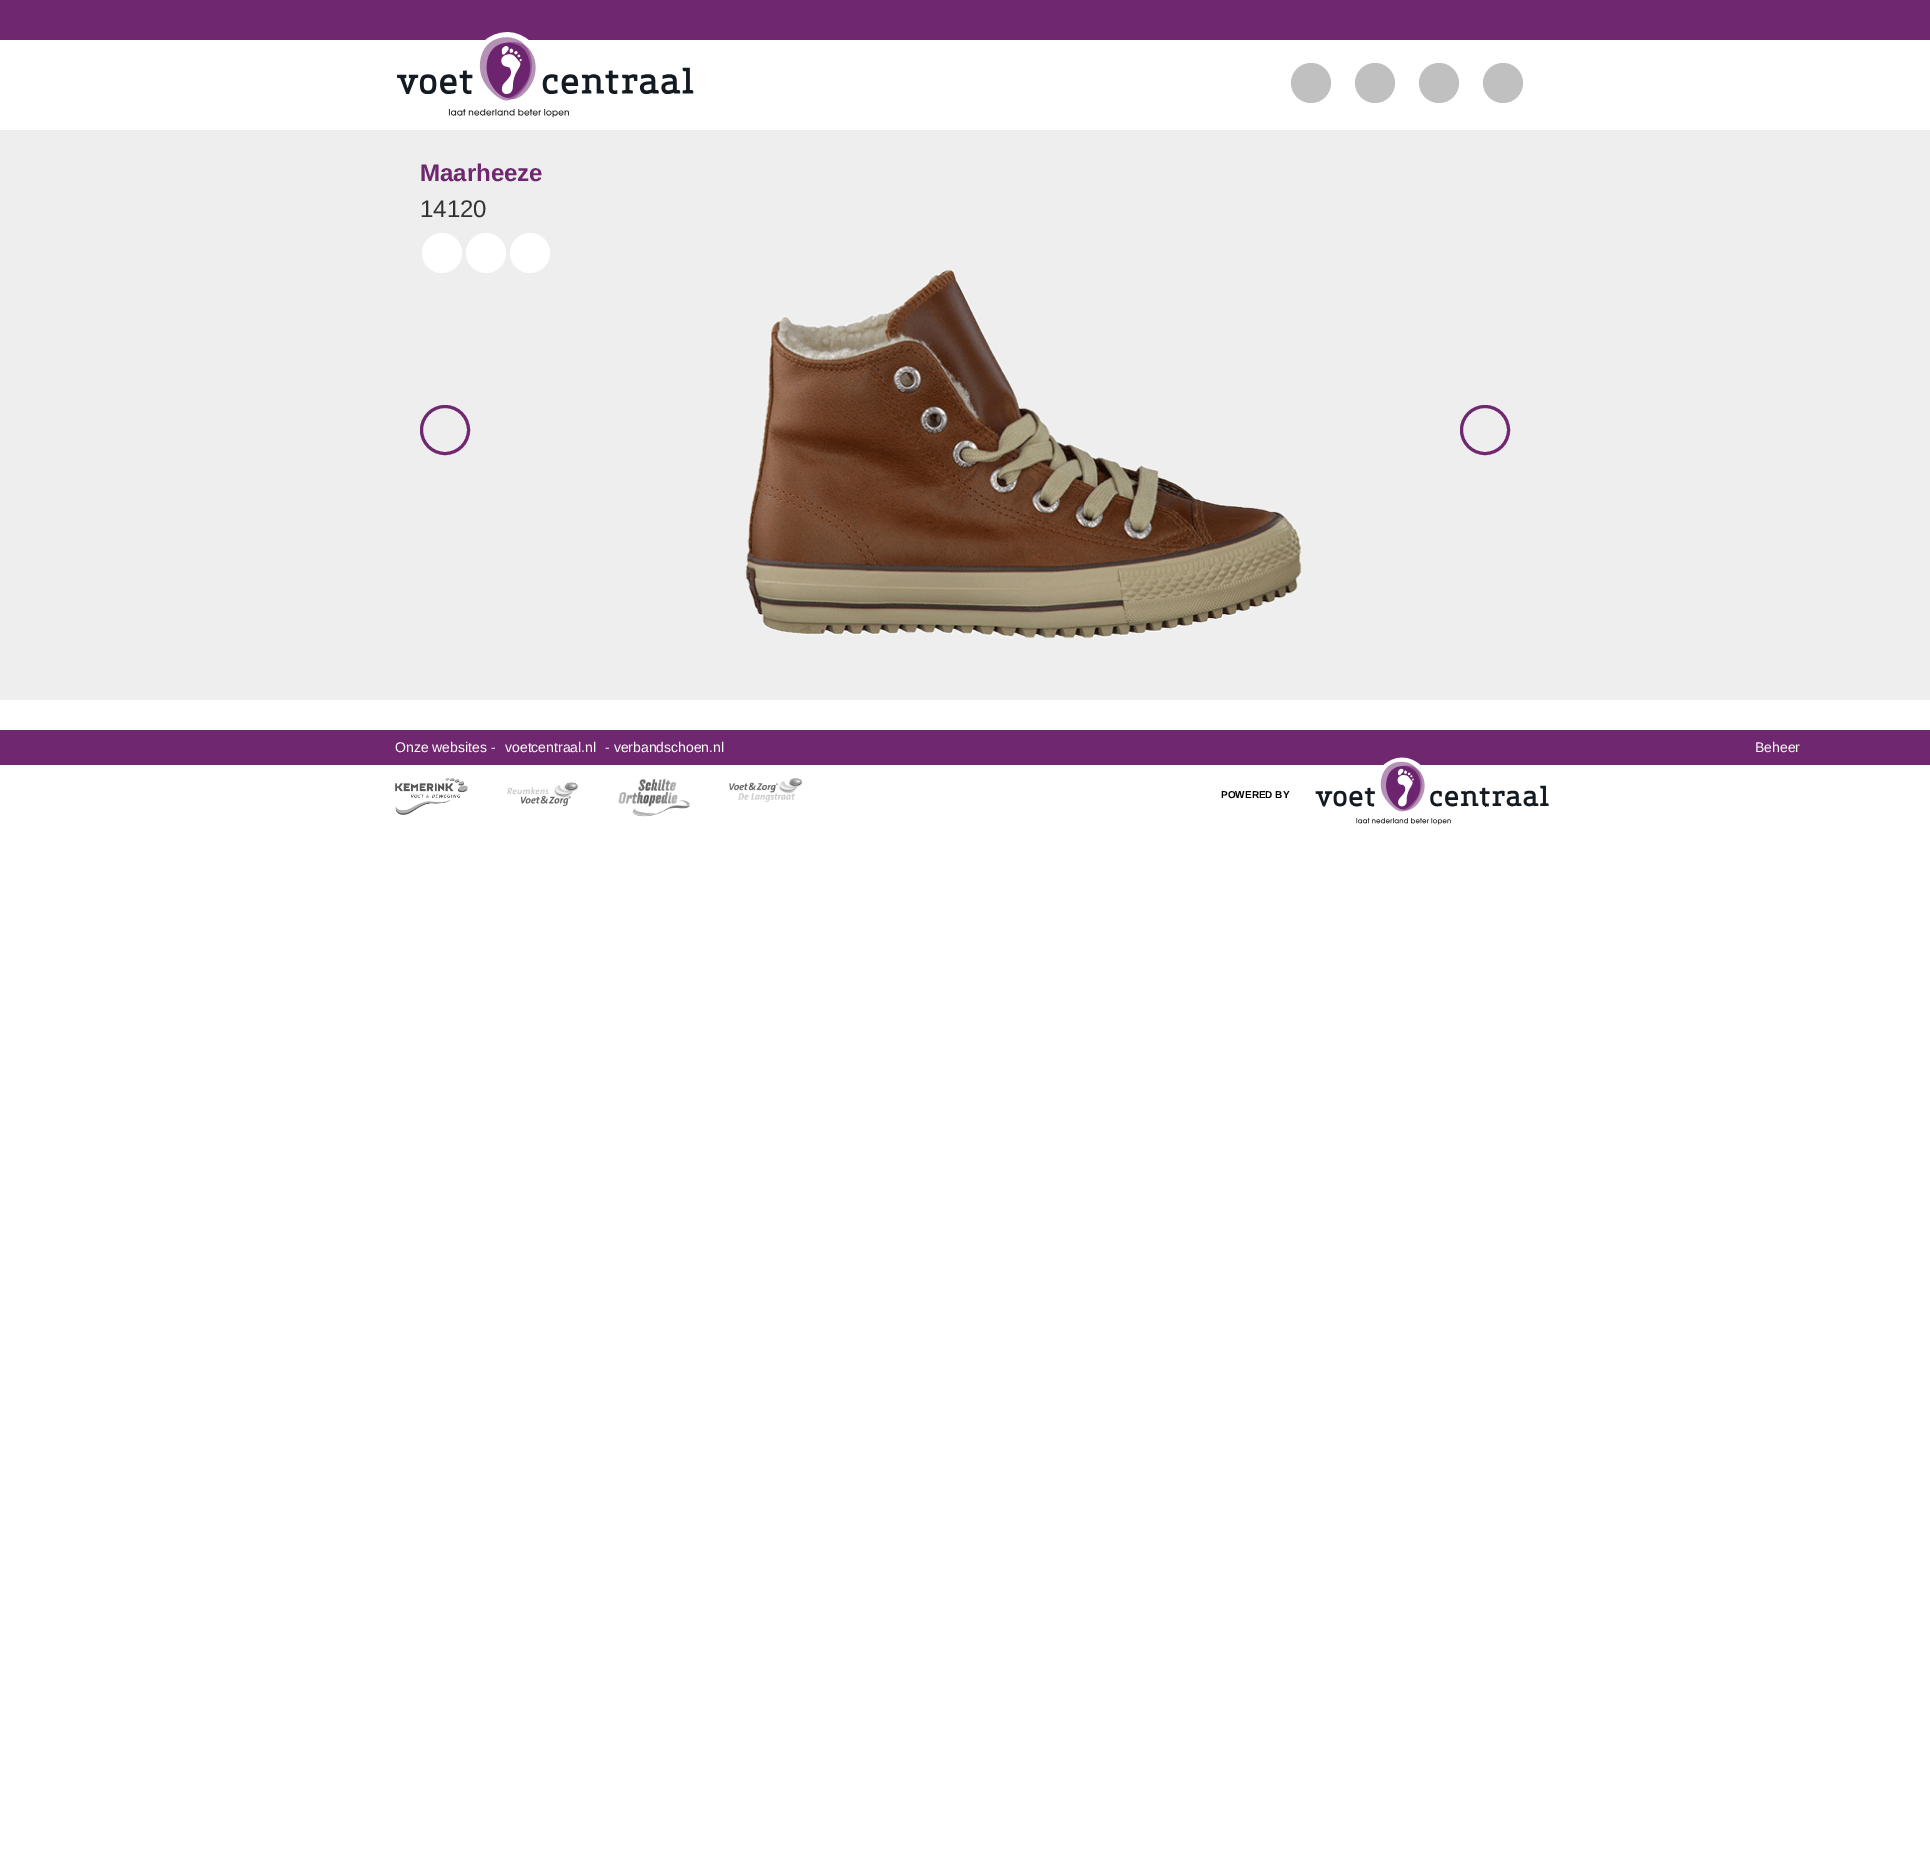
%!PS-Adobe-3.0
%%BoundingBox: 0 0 1930 1860
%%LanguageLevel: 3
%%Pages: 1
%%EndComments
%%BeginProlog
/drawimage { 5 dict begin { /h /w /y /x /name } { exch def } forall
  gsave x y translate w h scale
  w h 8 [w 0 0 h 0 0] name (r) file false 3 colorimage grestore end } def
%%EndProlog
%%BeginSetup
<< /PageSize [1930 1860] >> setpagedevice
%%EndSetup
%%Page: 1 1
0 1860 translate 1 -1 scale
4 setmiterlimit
1 setgray
0 0 1930 1860 rectfill
0.435 0.153 0.439 setrgbcolor
0 0 1930 40 rectfill
(images/1.raw) 397 32 297 86 drawimage
0.753 setgray
newpath 1311 83 20 0 360 arc closepath fill
newpath 1375 83 20 0 360 arc closepath fill
newpath 1439 83 20 0 360 arc closepath fill
newpath 1503 83 20 0 360 arc closepath fill
0.933 setgray
0 130 1930 570 rectfill
1 setgray
newpath 442 253 20 0 360 arc closepath fill
newpath 486 253 20 0 360 arc closepath fill
newpath 530 253 20 0 360 arc closepath fill
0.435 0.153 0.439 setrgbcolor
3 setlinewidth
newpath 445 430 23.5 0 360 arc closepath stroke
(images/2.raw) 745 270 557 368 drawimage
newpath 1485 430 23.5 0 360 arc closepath stroke
0 730 1930 35 rectfill
(images/3.raw) 395 778 73 37 drawimage
(images/4.raw) 507 782 72 24 drawimage
(images/5.raw) 618 778 72 39 drawimage
(images/6.raw) 729 778 74 24 drawimage
(images/7.raw) 1315 757 234 68 drawimage
/LiberationSans-Bold [24 0 0 -24 0 0] selectfont
420 181 moveto (Maarheeze) show
/LiberationSans-Regular [24 0 0 -24 0 0] selectfont
0.2 setgray
420 217 moveto (14120) show
/LiberationSans-Regular [14 0 0 -14 0 0] selectfont
1 setgray
395 752 moveto (Onze websites -) show
505 752 moveto (voetcentraal.nl) show
605 752 moveto (- verbandschoen.nl) show
1755 752 moveto (Beheer) show
/LiberationSans-Bold [10 0 0 -10 0 0] selectfont
0 setgray
1221 798 moveto (POWERED BY) show
showpage
%%EOF
